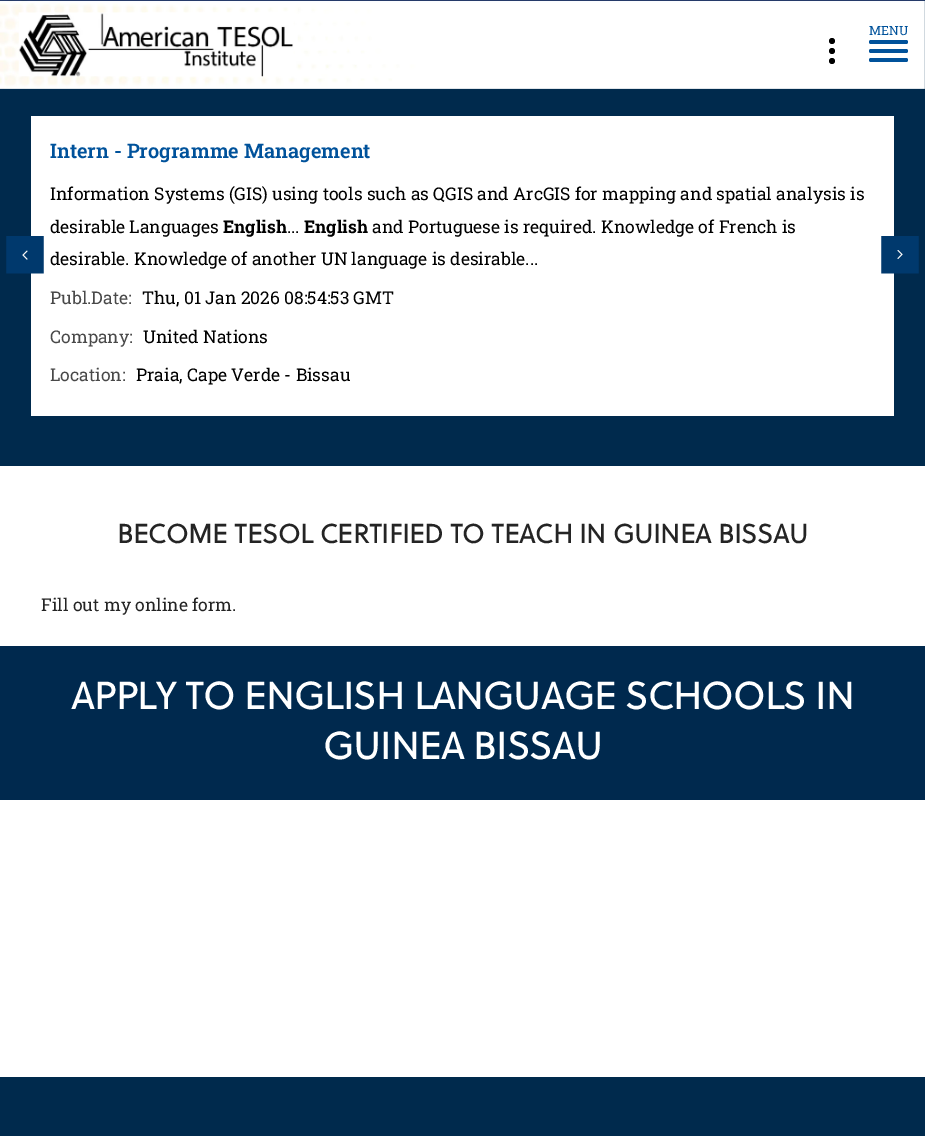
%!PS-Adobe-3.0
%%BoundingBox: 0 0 925 1136
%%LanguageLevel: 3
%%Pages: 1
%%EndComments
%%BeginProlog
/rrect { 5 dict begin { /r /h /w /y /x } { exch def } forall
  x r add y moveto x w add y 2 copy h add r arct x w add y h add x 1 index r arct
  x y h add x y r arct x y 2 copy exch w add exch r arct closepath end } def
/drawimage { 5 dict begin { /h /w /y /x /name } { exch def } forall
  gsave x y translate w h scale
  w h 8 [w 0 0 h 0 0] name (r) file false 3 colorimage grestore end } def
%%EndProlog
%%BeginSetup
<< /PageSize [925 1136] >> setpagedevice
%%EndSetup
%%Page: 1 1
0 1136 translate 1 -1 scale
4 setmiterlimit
1 setgray
0 0 925 1136 rectfill
0 0.165 0.302 setrgbcolor
0 0 925 466 rectfill
(images/1.raw) 0 0 925 89 drawimage
(images/2.raw) 18 12 276 65 drawimage
0 0.322 0.608 setrgbcolor
869 40 39 4 2 rrect fill
869 49 39 4 2 rrect fill
869 58 39 4 2 rrect fill
0 setgray
newpath 832 41 3 0 360 arc closepath fill
newpath 832 51 3 0 360 arc closepath fill
newpath 832 61 3 0 360 arc closepath fill
1 setgray
31 116 863 300 rectfill
(images/3.raw) 6 236 38 38 drawimage
(images/4.raw) 881 236 38 38 drawimage
0 0.161 0.306 setrgbcolor
0 646 925 154 rectfill
0 0.165 0.302 setrgbcolor
0 1077 925 59 rectfill
/RobotoSlab-Regular [12.5 0 0 -12.5 0 0] selectfont
0 0.322 0.608 setrgbcolor
869 35 moveto (MENU) show
/RobotoSlab-SemiBold [20 0 0 -20 0 0] selectfont
50 158 moveto (Intern - Programme Management) show
/RobotoSlab-Regular [17.5 0 0 -17.5 0 0] selectfont
0 setgray
50 200 moveto (Information Systems \(GIS\) using tools such as QGIS and ArcGIS for mapping and spatial analysis is) show
50 233 moveto (desirable Languages) show
/RobotoSlab-Bold [17.5 0 0 -17.5 0 0] selectfont
223 233 moveto (English) show
/RobotoSlab-Regular [17.5 0 0 -17.5 0 0] selectfont
287 233 moveto (...) show
/RobotoSlab-Bold [17.5 0 0 -17.5 0 0] selectfont
304 233 moveto (English) show
/RobotoSlab-Regular [17.5 0 0 -17.5 0 0] selectfont
372 233 moveto (and Portuguese is required. Knowledge of French is) show
50 265 moveto (desirable. Knowledge of another UN language is desirable...) show
0.286 setgray
50 304 moveto (Publ.Date:) show
0 setgray
142 304 moveto (Thu, 01 Jan 2026 08:54:53 GMT) show
0.286 setgray
50 343 moveto (Company:) show
0 setgray
143 343 moveto (United Nations) show
0.286 setgray
50 381 moveto (Location:) show
0 setgray
136 381 moveto (Praia, Cape Verde - Bissau) show
/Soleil-Bold [26.25 0 0 -26.25 0 0] selectfont
0.141 setgray
117 543 moveto (BECOME TESOL CERTIFIED TO TEACH IN GUINEA BISSAU) show
/RobotoSlab-Regular [17.5 0 0 -17.5 0 0] selectfont
41 611 moveto (Fill out my online form.) show
/Soleil-Bold [37.5 0 0 -37.5 0 0] selectfont
1 setgray
71 709 moveto (APPLY TO ENGLISH LANGUAGE SCHOOLS IN) show
323 759 moveto (GUINEA BISSAU) show
showpage
%%EOF
